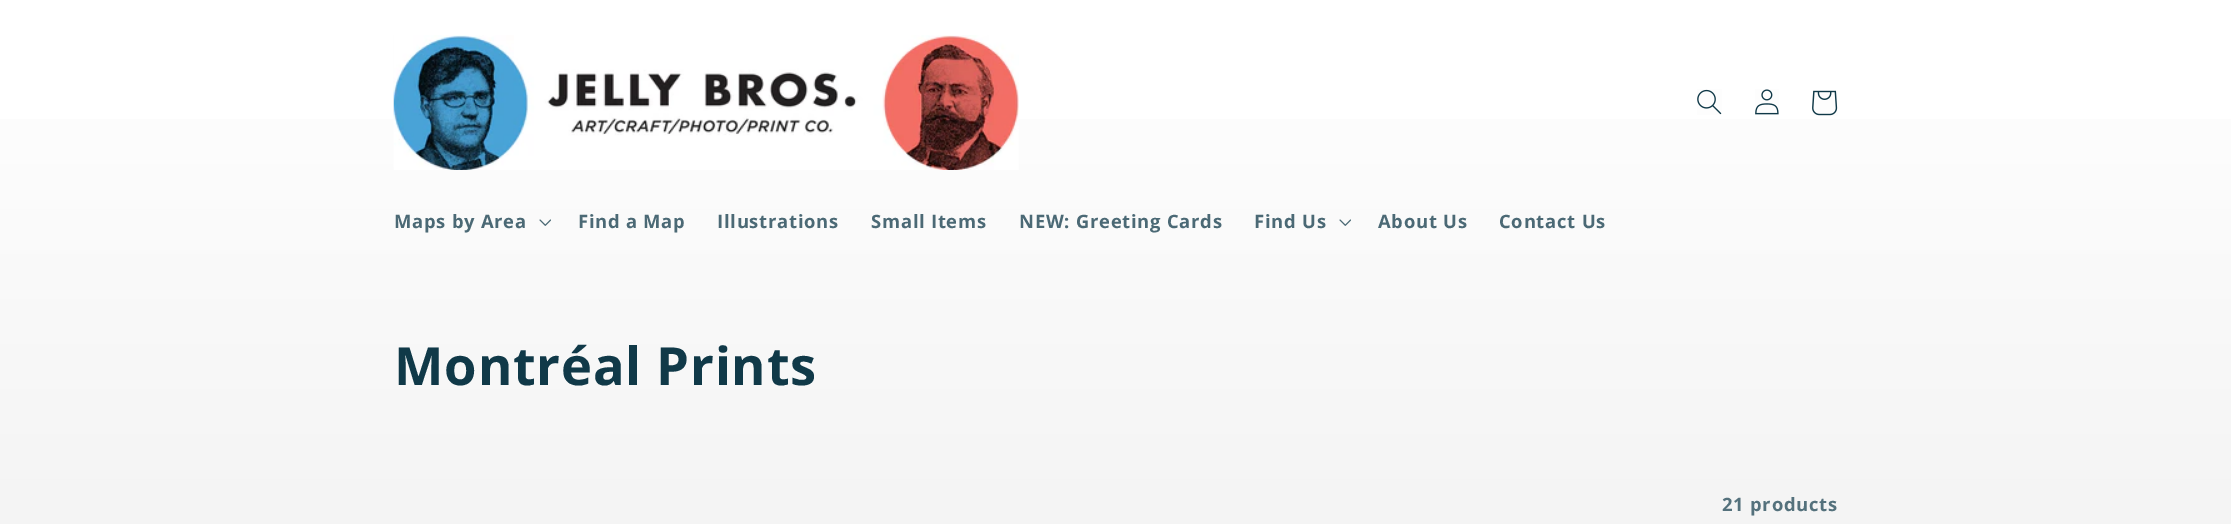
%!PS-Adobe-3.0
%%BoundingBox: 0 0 2231 524
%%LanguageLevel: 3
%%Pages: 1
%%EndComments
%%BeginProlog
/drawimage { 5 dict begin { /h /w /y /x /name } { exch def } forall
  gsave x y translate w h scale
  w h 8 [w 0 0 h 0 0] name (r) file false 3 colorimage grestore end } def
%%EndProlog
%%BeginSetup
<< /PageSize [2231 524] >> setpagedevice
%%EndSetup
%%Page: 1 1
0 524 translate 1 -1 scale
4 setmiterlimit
1 setgray
0 0 2231 524 rectfill
gsave newpath 0 119 moveto 2231 119 lineto 2231 524 lineto 0 524 lineto closepath clip newpath
<< /ShadingType 2 /ColorSpace /DeviceRGB /Coords [1116 0 1116 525] /Extend [true true] /Function << /FunctionType 2 /Domain [0 1] /C0 [1 1 1] /C1 [0.957 0.957 0.957] /N 1 >> >> shfill grestore
(images/1.raw) 393 35 626 135 drawimage
(images/2.raw) 1697 89 25 26 drawimage
(images/3.raw) 1755 89 24 26 drawimage
(images/4.raw) 1812 90 26 26 drawimage
(images/5.raw) 539 219 12 7 drawimage
(images/5.raw) 1339 219 12 7 drawimage
/OpenSans-Bold [18.4 0 0 -18.4 0 0] selectfont
0.294 0.412 0.459 setrgbcolor
394 228 moveto 0.75 0 (Maps by Area) ashow
578 228 moveto 0.75 0 (Find a Map) ashow
717 228 moveto 0.75 0 (Illustrations) ashow
871 228 moveto 0.75 0 (Small Items) ashow
1019 228 moveto 0.75 0 (NEW: Greeting Cards) ashow
1254 228 moveto 0.75 0 (Find Us) ashow
1378 228 moveto 0.75 0 (About Us) ashow
1499 228 moveto 0.75 0 (Contact Us) ashow
/OpenSans-Bold [52.5 0 0 -52.5 0 0] selectfont
0.063 0.224 0.282 setrgbcolor
394 385 moveto 0.75 0 (Montréal Prints) ashow
/OpenSans-Bold [18.4 0 0 -18.4 0 0] selectfont
0.329 0.443 0.486 setrgbcolor
1722 511 moveto 0.75 0 (21 products) ashow
showpage
%%EOF
